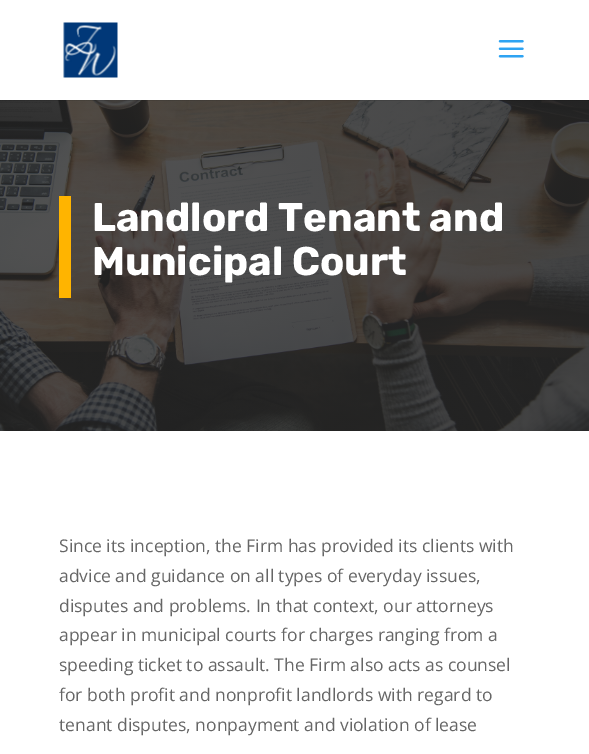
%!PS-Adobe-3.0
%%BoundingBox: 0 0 589 754
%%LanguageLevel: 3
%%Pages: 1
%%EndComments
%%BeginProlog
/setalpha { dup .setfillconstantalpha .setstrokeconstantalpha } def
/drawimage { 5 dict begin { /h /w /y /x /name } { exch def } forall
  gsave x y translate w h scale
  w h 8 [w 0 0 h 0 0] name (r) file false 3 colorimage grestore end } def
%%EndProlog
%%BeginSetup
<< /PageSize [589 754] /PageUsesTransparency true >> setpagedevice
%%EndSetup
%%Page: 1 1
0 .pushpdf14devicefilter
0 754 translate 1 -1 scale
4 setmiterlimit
1 setgray
0 0 589 754 rectfill
(images/3.raw) 0 100 589 331 drawimage
0.1 setalpha
0 setgray
0 100 589 1 rectfill
1 setalpha
(images/1.raw) 63 22 55 56 drawimage
(images/2.raw) 498 40 26 18 drawimage
1 0.706 0 setrgbcolor
59 196 12 102 rectfill
/Rubik-Light [40 0 0 -40 0 0] selectfont
1 setgray
92 231 moveto (Landlord Tenant and) show
92 275 moveto (Municipal Court) show
/OpenSans-Regular [17.5 0 0 -17.5 0 0] selectfont
0.4 setgray
59 552 moveto (Since its inception, the Firm has provided its clients with) show
59 582 moveto (advice and guidance on all types of everyday issues,) show
59 612 moveto (disputes and problems. In that context, our attorneys) show
59 641 moveto (appear in municipal courts for charges ranging from a) show
59 671 moveto (speeding ticket to assault. The Firm also acts as counsel) show
59 701 moveto (for both profit and nonprofit landlords with regard to) show
59 731 moveto (tenant disputes, nonpayment and violation of lease) show
.poppdf14devicefilter showpage
%%EOF
